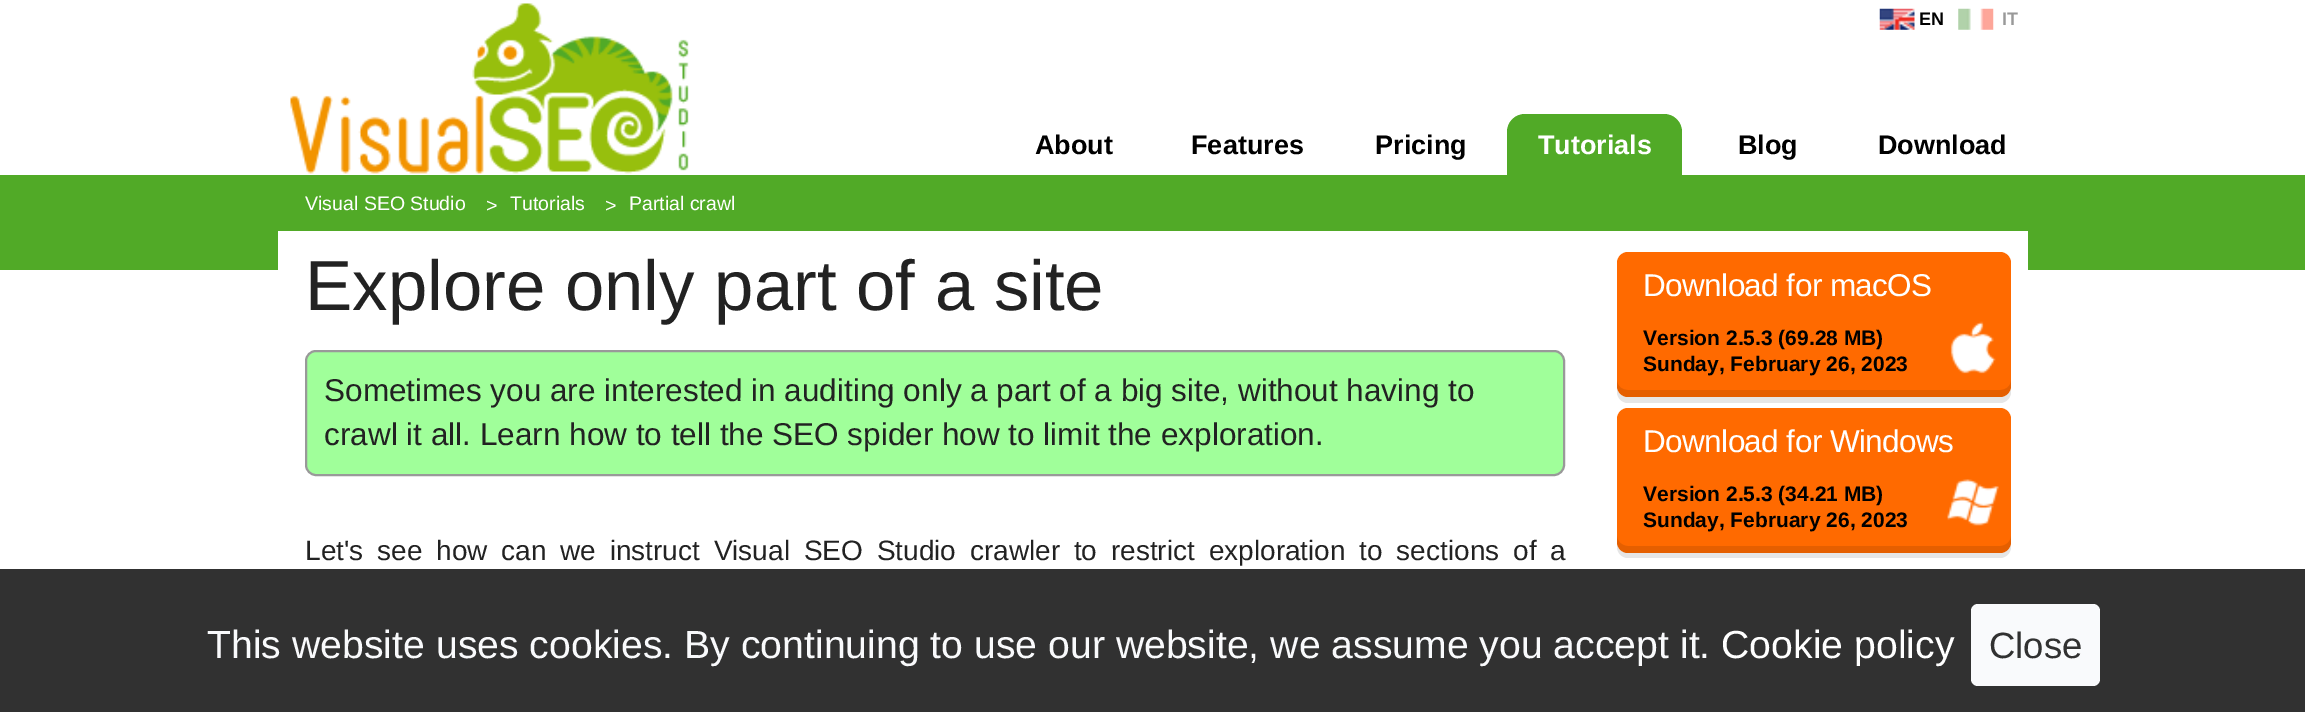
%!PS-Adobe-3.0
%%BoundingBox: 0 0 2305 712
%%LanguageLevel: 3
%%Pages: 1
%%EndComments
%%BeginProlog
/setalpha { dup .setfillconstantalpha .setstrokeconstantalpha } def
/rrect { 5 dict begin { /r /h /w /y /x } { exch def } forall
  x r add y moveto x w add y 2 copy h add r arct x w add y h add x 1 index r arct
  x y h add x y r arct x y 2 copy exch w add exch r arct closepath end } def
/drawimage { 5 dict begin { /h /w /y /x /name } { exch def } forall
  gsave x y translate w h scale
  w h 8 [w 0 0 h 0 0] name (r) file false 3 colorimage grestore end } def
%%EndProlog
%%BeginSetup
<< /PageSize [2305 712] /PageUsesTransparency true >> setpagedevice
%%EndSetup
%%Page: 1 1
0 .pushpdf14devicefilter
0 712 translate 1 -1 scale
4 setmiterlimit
1 setgray
0 0 2305 712 rectfill
(images/1.raw) 290 3 399 171 drawimage
(images/2.raw) 1879 8 36 22 drawimage
(images/3.raw) 1958 8 36 22 drawimage
0.318 0.667 0.153 setrgbcolor
newpath 1525 114 moveto 1664 114 lineto 1674 114 1682 122 1682 132 curveto 1682 175 lineto 1507 175 lineto 1507 132 lineto 1507 122 1515 114 1525 114 curveto closepath fill
0 175 2305 95 rectfill
1 setgray
278 231 1750 39 rectfill
0.627 1 0.604 setrgbcolor
306 351 1258 124 10 rrect gsave fill grestore
0.6 setgray
2 setlinewidth
stroke
0.902 setgray
newpath 1617 387 moveto 1617 392 lineto 1617 398 1622 403 1628 403 curveto 2000 403 lineto 2006 403 2011 398 2011 392 curveto 2011 266 lineto 2011 387 lineto 2011 393 2006 397 2000 397 curveto 1628 397 lineto 1622 397 1617 393 1617 387 curveto closepath fill
1 0.416 0 setrgbcolor
1617 252 394 145 11 rrect fill
(images/4.raw) 1950 321 46 53 drawimage
0.1 setalpha
0 setgray
newpath 1617 380 moveto 1617 386 lineto 1617 392 1622 397 1628 397 curveto 2000 397 lineto 2006 397 2011 392 2011 386 curveto 2011 380 lineto 2011 386 2006 390 2000 390 curveto 1628 390 lineto 1622 390 1617 386 1617 380 curveto closepath fill
1 setalpha
0.902 setgray
newpath 1617 542 moveto 1617 547 lineto 1617 553 1622 558 1628 558 curveto 2000 558 lineto 2006 558 2011 553 2011 547 curveto 2011 422 lineto 2011 542 lineto 2011 548 2006 553 2000 553 curveto 1628 553 lineto 1622 553 1617 548 1617 542 curveto closepath fill
1 0.416 0 setrgbcolor
1617 408 394 145 11 rrect fill
(images/5.raw) 1947 479 52 47 drawimage
0.1 setalpha
0 setgray
newpath 1617 536 moveto 1617 542 lineto 1617 548 1622 553 1628 553 curveto 2000 553 lineto 2006 553 2011 548 2011 542 curveto 2011 536 lineto 2011 541 2006 546 2000 546 curveto 1628 546 lineto 1622 546 1617 541 1617 536 curveto closepath fill
1 setalpha
0.192 setgray
0 569 2305 143 rectfill
0.976 0.98 0.988 setrgbcolor
1971 604 129 82 7 rrect fill
/LiberationSans-Bold [18 0 0 -18 0 0] selectfont
0 setgray
1919 25 moveto (EN) show
0.6 setgray
2002 25 moveto (IT) show
/LiberationSans-Bold [27 0 0 -27 0 0] selectfont
0 setgray
1035 154 moveto (About) show
1191 154 moveto (Features) show
1375 154 moveto (Pricing) show
1 setgray
1538 154 moveto (Tutorials) show
0 setgray
1738 154 moveto (Blog) show
1878 154 moveto (Download) show
/LiberationSans-Regular [19.5 0 0 -19.5 0 0] selectfont
1 setgray
305 210 moveto (Visual SEO Studio) show
486 212 moveto (>) show
510 210 moveto (Tutorials) show
605 212 moveto (>) show
629 210 moveto (Partial crawl) show
/LiberationSans-Regular [70.8 0 0 -70.8 0 0] selectfont
0.133 setgray
305 310 moveto (Explore only part of a site) show
/LiberationSans-Regular [31.5 0 0 -31.5 0 0] selectfont
324 401 moveto (Sometimes you are interested in auditing only a part of a big site, without having to) show
324 445 moveto (crawl it all. Learn how to tell the SEO spider how to limit the exploration.) show
/LiberationSans-Regular [28 0 0 -28 0 0] selectfont
305 560 moveto 6 0 32 (Let's see how can we instruct Visual SEO Studio crawler to restrict exploration to sections of a) widthshow
/LiberationSans-Regular [31.5 0 0 -31.5 0 0] selectfont
1 setgray
1643 296 moveto -0.6 0 (Download for macOS) ashow
/LiberationSans-Bold [21 0 0 -21 0 0] selectfont
0 setgray
1643 345 moveto (Version 2.5.3 \(69.28 MB\)) show
1643 371 moveto (Sunday, February 26, 2023) show
/LiberationSans-Regular [31.5 0 0 -31.5 0 0] selectfont
1 setgray
1643 452 moveto -0.6 0 (Download for Windows) ashow
/LiberationSans-Bold [21 0 0 -21 0 0] selectfont
0 setgray
1643 501 moveto (Version 2.5.3 \(34.21 MB\)) show
1643 527 moveto (Sunday, February 26, 2023) show
/LiberationSans-Regular [39.2 0 0 -39.2 0 0] selectfont
0.976 0.98 0.988 setrgbcolor
207 658 moveto (This website uses cookies. By continuing to use our website, we assume you accept it.) show
1 setgray
1721 658 moveto (Cookie policy) show
/LiberationSans-Regular [36.5 0 0 -36.5 0 0] selectfont
0.192 setgray
1989 658 moveto (Close) show
.poppdf14devicefilter showpage
%%EOF
